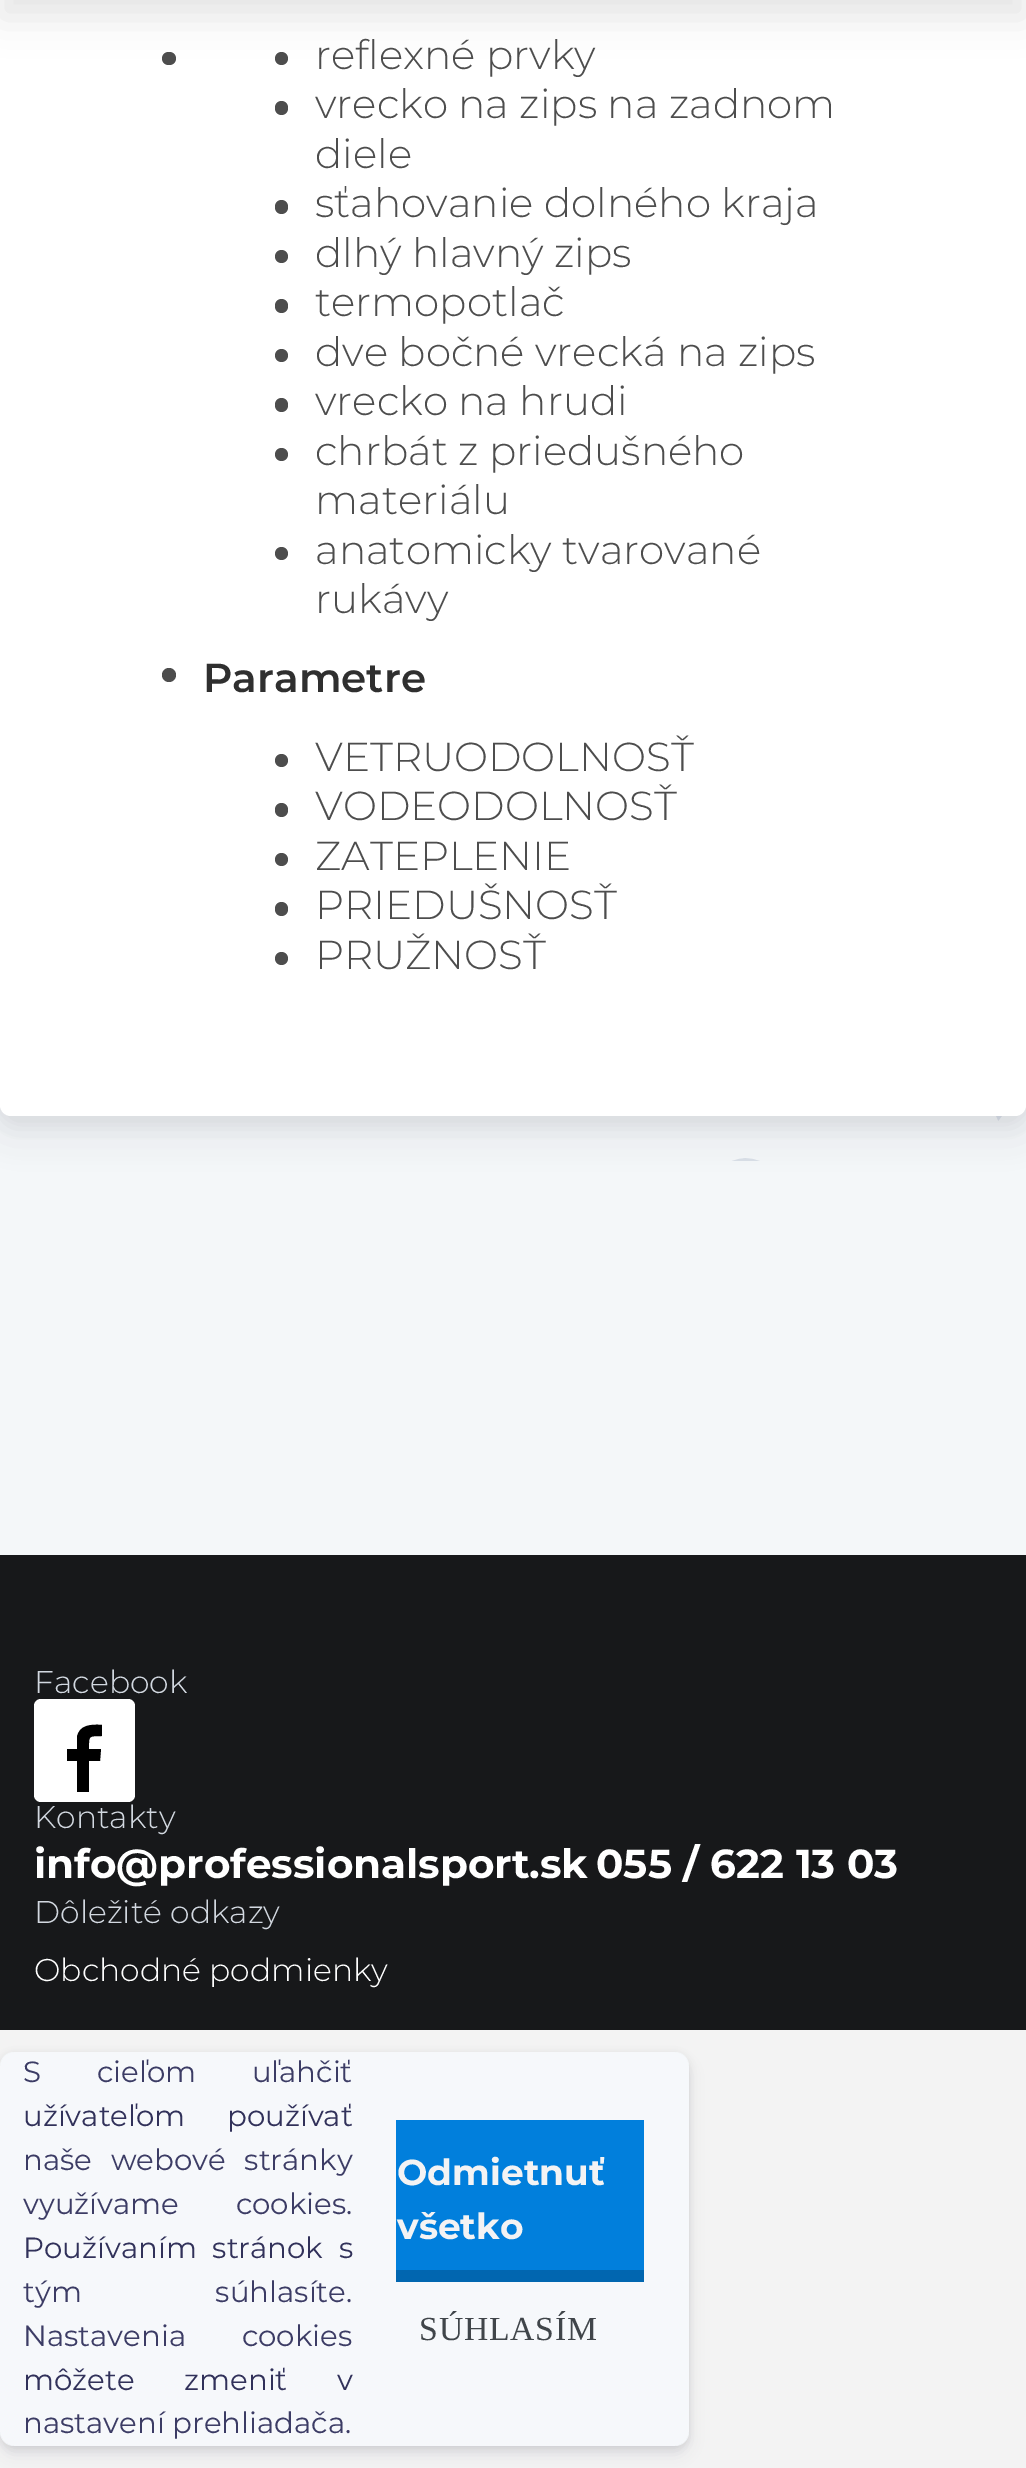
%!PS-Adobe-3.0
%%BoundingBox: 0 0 1026 2468
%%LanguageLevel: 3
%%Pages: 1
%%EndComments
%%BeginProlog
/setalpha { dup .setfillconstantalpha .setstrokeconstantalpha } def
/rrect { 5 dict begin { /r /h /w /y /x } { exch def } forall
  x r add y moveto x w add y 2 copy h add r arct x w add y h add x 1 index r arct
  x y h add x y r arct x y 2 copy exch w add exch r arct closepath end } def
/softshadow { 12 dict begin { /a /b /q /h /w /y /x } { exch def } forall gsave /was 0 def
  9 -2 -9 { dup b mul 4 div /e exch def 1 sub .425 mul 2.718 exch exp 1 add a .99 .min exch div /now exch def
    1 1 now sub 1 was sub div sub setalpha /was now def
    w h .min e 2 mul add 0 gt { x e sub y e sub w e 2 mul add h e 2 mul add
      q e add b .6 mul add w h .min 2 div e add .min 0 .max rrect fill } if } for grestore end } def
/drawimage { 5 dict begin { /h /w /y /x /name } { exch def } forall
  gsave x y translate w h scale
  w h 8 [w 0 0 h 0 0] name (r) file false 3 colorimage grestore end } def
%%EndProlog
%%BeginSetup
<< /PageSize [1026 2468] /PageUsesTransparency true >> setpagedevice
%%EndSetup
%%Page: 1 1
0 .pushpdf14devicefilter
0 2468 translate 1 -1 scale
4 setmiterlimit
0.09 0.094 0.102 setrgbcolor
0 0 1026 2468 rectfill
0.957 0.969 0.976 setrgbcolor
0 1105 1026 450 rectfill
(images/1.raw) 731 1116 271 45 drawimage
0 setgray
0 -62 1026 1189 11 17 0.07 softshadow
0.196 0.196 0.365 setrgbcolor
0 -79 1026 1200 11 22.5 0.1 softshadow
1 setgray
0 -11 1026 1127 11 rrect fill
0.302 setgray
162 52 14 13 6.5 rrect fill
newpath 281.5 58.5 6.5 0 360 arc closepath fill
0 setgray
0 -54 1026 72 0 18 0.1 softshadow
0.302 setgray
275 101 13 14 6.5 rrect fill
275 200 13 14 6.5 rrect fill
newpath 281.5 256.5 6.5 0 360 arc closepath fill
275 299 13 14 6.5 rrect fill
newpath 281.5 355.5 6.5 0 360 arc closepath fill
275 398 13 14 6.5 rrect fill
newpath 281.5 454.5 6.5 0 360 arc closepath fill
newpath 281.5 553.5 6.5 0 360 arc closepath fill
newpath 169 675 7 0 360 arc closepath fill
newpath 281.5 760.5 6.5 0 360 arc closepath fill
275 803 13 14 6.5 rrect fill
newpath 281.5 859.5 6.5 0 360 arc closepath fill
275 902 13 14 6.5 rrect fill
newpath 281.5 958.5 6.5 0 360 arc closepath fill
1 setgray
34 1699 101 103 7 rrect fill
0 setgray
newpath 102 1725 moveto 102 1736 lineto 88 1736 89 1736 89 1749 curveto 101 1749 lineto 100 1761 lineto 89 1761 lineto 89 1792 lineto 77 1792 lineto 77 1761 lineto 67 1761 lineto 67 1749 lineto 77 1749 lineto 77 1737 lineto 79 1725 91 1724 102 1725 curveto closepath fill
0.039 0.039 0.094 setrgbcolor
0 2288 1026 135 rectfill
0.95 setalpha
1 setgray
0 2030 1026 438 rectfill
gsave
newpath 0 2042 moveto 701 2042 lineto 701 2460 lineto 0 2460 lineto closepath 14 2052 moveto 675 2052 lineto 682.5 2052 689 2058.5 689 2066 curveto 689 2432 lineto 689 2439.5 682.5 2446 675 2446 curveto 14 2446 lineto 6.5 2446 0 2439.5 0 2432 curveto 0 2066 lineto 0 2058.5 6.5 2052 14 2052 curveto closepath eoclip newpath
1 setalpha
0 setgray
0 2054 689 394 14 3.5 0.08 softshadow
grestore
gsave
newpath 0 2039 moveto 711 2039 lineto 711 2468 lineto 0 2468 lineto closepath 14 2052 moveto 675 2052 lineto 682.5 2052 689 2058.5 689 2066 curveto 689 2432 lineto 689 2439.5 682.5 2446 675 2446 curveto 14 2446 lineto 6.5 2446 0 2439.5 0 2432 curveto 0 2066 lineto 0 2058.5 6.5 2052 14 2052 curveto closepath eoclip newpath
1 setalpha
0.196 0.196 0.365 setrgbcolor
0 2061 689 394 14 7 0.1 softshadow
grestore
0.85 setalpha
0.965 0.976 0.988 setrgbcolor
0 2052 689 394 14 rrect fill
1 setalpha
0.004 0.498 0.863 setrgbcolor
396 2120 248 150 rectfill
0.004 0.4 0.69 setrgbcolor
396 2270 248 12 rectfill
/Montserrat-Light [40.5 0 0 -40.5 0 0] selectfont
0.302 setgray
315 69 moveto (reflexné prvky) show
315 118 moveto (vrecko na zips na zadnom) show
315 168 moveto (diele) show
315 217 moveto (sťahovanie dolného kraja) show
315 267 moveto (dlhý hlavný zips) show
315 316 moveto (termopotlač) show
315 366 moveto (dve bočné vrecká na zips) show
315 415 moveto (vrecko na hrudi) show
315 465 moveto (chrbát z priedušného) show
315 514 moveto (materiálu) show
315 564 moveto (anatomicky tvarované) show
315 613 moveto (rukávy) show
/Montserrat-SemiBold [40.5 0 0 -40.5 0 0] selectfont
0.184 setgray
203 692 moveto (Parametre) show
/Montserrat-Light [40.5 0 0 -40.5 0 0] selectfont
0.302 setgray
315 771 moveto (VETRUODOLNOSŤ) show
315 820 moveto (VODEODOLNOSŤ) show
315 870 moveto (ZATEPLENIE) show
315 919 moveto (PRIEDUŠNOSŤ) show
315 969 moveto (PRUŽNOSŤ) show
/Montserrat-Light [31.5 0 0 -31.5 0 0] selectfont
0.824 0.847 0.878 setrgbcolor
34 1693 moveto (Facebook) show
34 1828 moveto (Kontakty) show
/Montserrat-Bold [40.5 0 0 -40.5 0 0] selectfont
1 setgray
34 1878 moveto (info@professionalsport.sk) show
596 1878 moveto (055 / 622 13 03) show
/Montserrat-Light [31.5 0 0 -31.5 0 0] selectfont
0.824 0.847 0.878 setrgbcolor
34 1923 moveto (Dôležité odkazy) show
1 setgray
34 1981 moveto (Obchodné podmienky) show
/Montserrat-Regular [29.25 0 0 -29.25 0 0] selectfont
0.235 0.235 0.396 setrgbcolor
23 2082 moveto 48 0 32 (S cieľom uľahčiť) widthshow
0.192 0.192 0.353 setrgbcolor
23 2126 moveto 34 0 32 (užívateľom používať) widthshow
0.235 0.235 0.396 setrgbcolor
23 2170 moveto 11 0 32 (naše webové stránky) widthshow
23 2214 moveto 49 0 32 (využívame cookies.) widthshow
0.192 0.192 0.353 setrgbcolor
23 2258 moveto 8 0 32 (Používaním stránok s) widthshow
0.235 0.235 0.396 setrgbcolor
23 2302 moveto 126 0 32 (tým súhlasíte.) widthshow
23 2346 moveto 48 0 32 (Nastavenia cookies) widthshow
0.192 0.192 0.353 setrgbcolor
23 2390 moveto 42 0 32 (môžete zmeniť v) widthshow
0.235 0.235 0.396 setrgbcolor
23 2433 moveto (nastavení prehliadača.) show
/Montserrat-Bold [36 0 0 -36 0 0] selectfont
0.953 0.953 0.957 setrgbcolor
397 2185 moveto (Odmietnuť) show
397 2239 moveto (všetko) show
/LiberationSerif-Regular [33.75 0 0 -33.75 0 0] selectfont
0.251 0.271 0.29 setrgbcolor
419 2340 moveto 0.75 0 (SÚHLASÍM) ashow
.poppdf14devicefilter showpage
%%EOF
